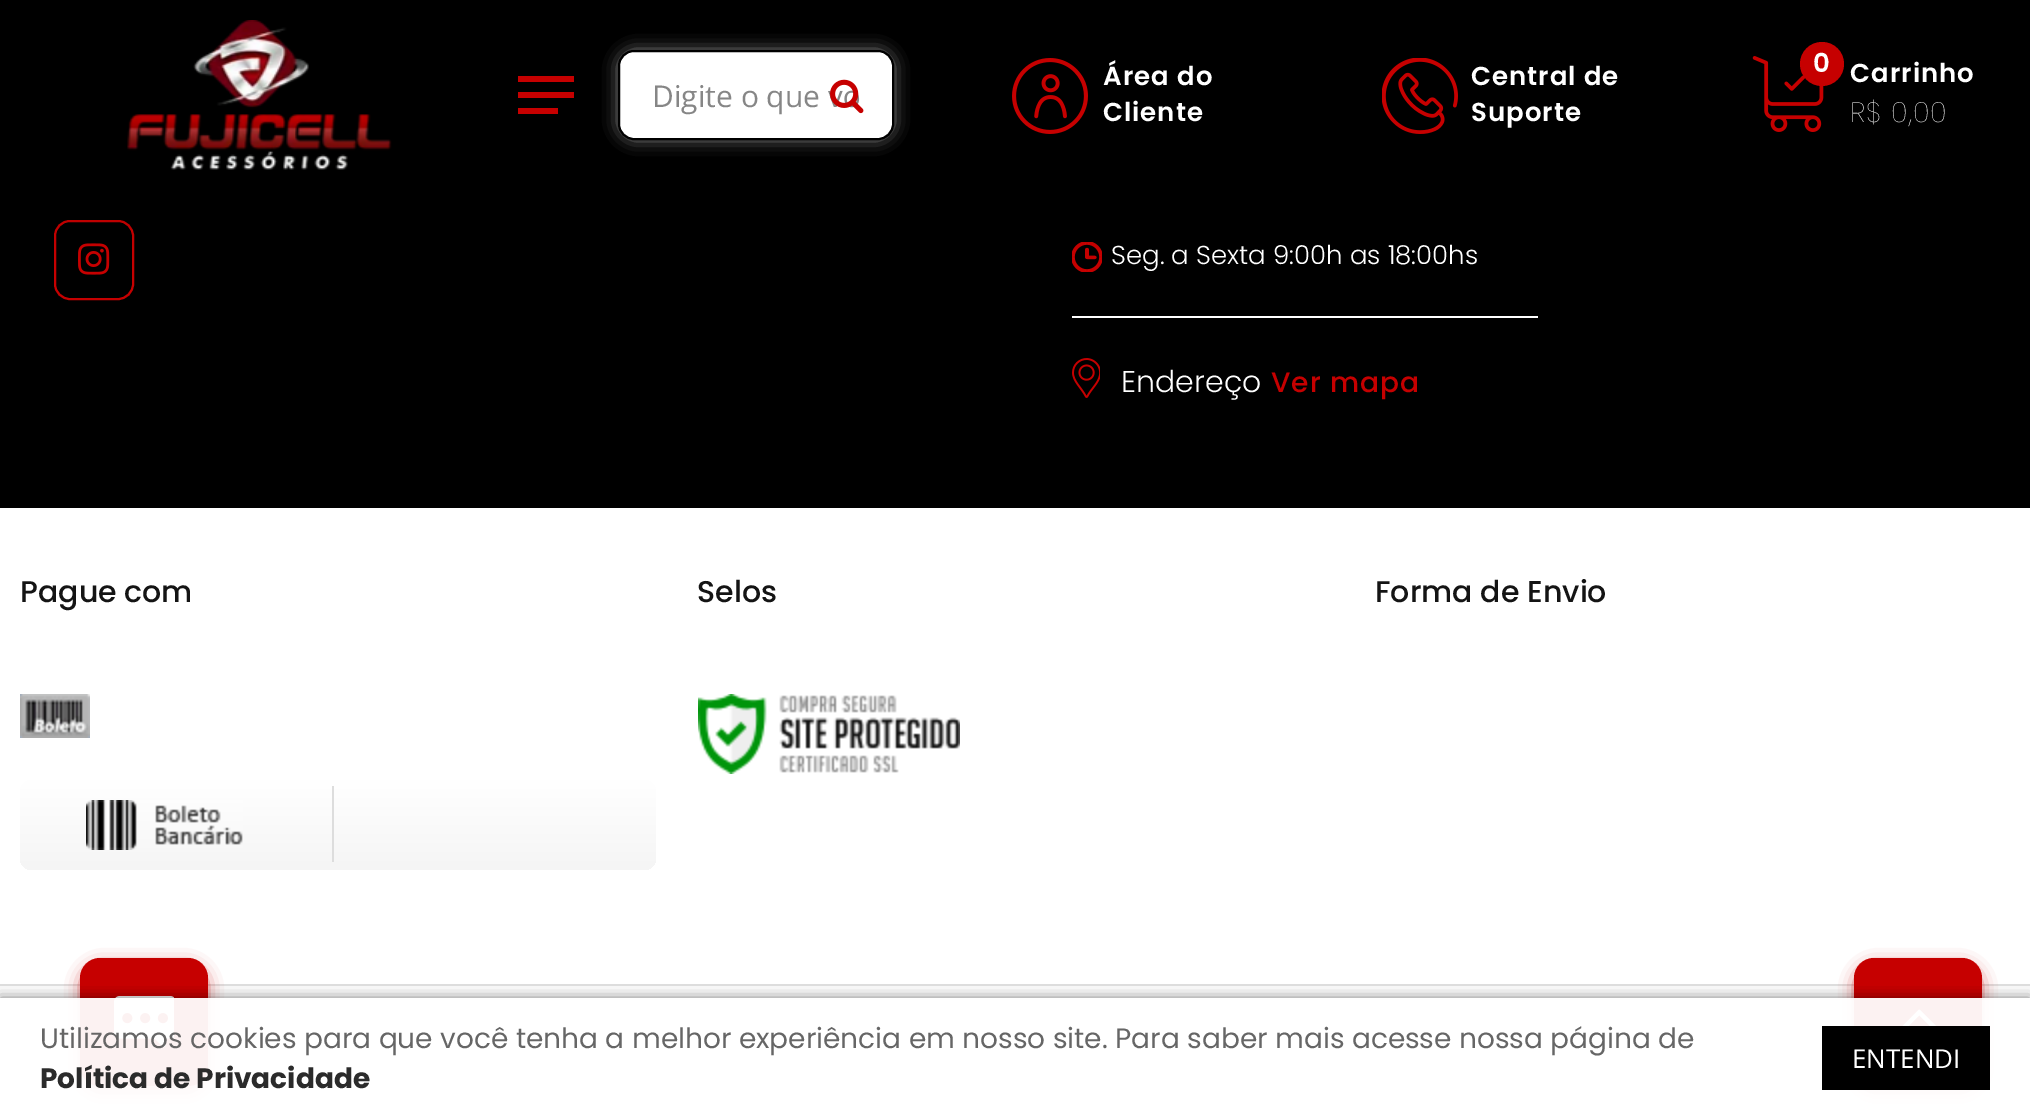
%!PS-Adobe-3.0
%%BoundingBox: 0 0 2030 1118
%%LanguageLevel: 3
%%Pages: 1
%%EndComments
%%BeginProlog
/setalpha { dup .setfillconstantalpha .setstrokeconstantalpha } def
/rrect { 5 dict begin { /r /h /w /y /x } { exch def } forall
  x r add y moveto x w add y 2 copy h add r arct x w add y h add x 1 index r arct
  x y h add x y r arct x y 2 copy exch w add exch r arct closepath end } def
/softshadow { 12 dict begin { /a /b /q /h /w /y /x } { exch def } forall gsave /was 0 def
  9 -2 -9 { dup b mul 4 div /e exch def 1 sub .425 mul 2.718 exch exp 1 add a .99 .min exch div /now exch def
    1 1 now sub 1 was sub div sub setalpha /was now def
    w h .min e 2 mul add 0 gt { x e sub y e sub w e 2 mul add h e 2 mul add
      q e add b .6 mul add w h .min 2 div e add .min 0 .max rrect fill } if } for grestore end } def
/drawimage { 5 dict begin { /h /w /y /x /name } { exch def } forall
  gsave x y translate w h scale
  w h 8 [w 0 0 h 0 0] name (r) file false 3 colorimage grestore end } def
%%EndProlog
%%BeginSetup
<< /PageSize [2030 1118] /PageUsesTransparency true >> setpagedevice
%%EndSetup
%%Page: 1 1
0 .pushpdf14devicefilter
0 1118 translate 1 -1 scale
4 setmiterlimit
1 setgray
0 0 2030 1118 rectfill
0 setgray
0 192 2030 316 rectfill
0.776 0 0 setrgbcolor
2 setlinewidth
55 221 78 78 15 rrect stroke
(images/6.raw) 78 243 32 32 drawimage
(images/7.raw) 1072 242 30 30 drawimage
0 setgray
0 0 2030 192 0 30 0.2 softshadow
0 0 2030 192 rectfill
(images/1.raw) 127 20 265 150 drawimage
0.776 0 0 setrgbcolor
518 76 56 6 rectfill
518 92 56 6 rectfill
518 108 40 6 rectfill
0.8 setgray
622 54 268 82 12 9 1 softshadow
1 setgray
619 51 274 88 15 rrect gsave fill grestore
0 setgray
stroke
(images/3.raw) 1012 58 76 76 drawimage
(images/4.raw) 1382 58 76 76 drawimage
(images/5.raw) 1752 56 72 76 drawimage
0.776 0 0 setrgbcolor
newpath 1822 64 22 0 360 arc closepath fill
1 setgray
1072 316 466 2 rectfill
(images/8.raw) 1072 358 28 40 drawimage
(images/9.raw) 20 694 70 44 drawimage
gsave 20 780 636 90 12 rrect clip newpath
<< /ShadingType 2 /ColorSpace /DeviceRGB /Coords [338 780 338 870] /Extend [true true] /Function << /FunctionType 2 /Domain [0 1] /C0 [1 1 1] /C1 [0.961 0.961 0.961] /N 1 >> >> shfill grestore
(images/10.raw) 86 800 157 50 drawimage
0.867 setgray
332 786 2 76 rectfill
(images/11.raw) 698 694 262 80 drawimage
0 984 2030 2 rectfill
0.776 0 0 setrgbcolor
84 968 120 120 16 9 1 softshadow
80 958 128 128 20 rrect fill
(images/12.raw) 114 996 60 52 drawimage
1858 968 120 120 16 9 1 softshadow
1854 958 128 128 20 rrect fill
(images/13.raw) 1902 1009 34 17 drawimage
gsave
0 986 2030 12 rectclip
0 setgray
0 998 2030 120 0 7 0.5 softshadow
grestore
0.95 setalpha
1 setgray
63 998 1936 111 rectfill
1 setalpha
0 setgray
1822 1026 168 64 rectfill
/OpenSans-Regular [30 0 0 -30 0 0] selectfont
0.525 setgray
652 107 moveto (Digite o que vo) show
(images/2.raw) 830 79 34 35 drawimage
/Poppins-SemiBold [26 0 0 -26 0 0] selectfont
1 setgray
1103 85 moveto 1 0 (Área do) ashow
1103 121 moveto 1 0 (Cliente) ashow
1471 85 moveto 1 0 (Central de) ashow
1471 121 moveto 1 0 (Suporte) ashow
1813 72 moveto 1 0 (0) ashow
1850 82 moveto 1 0 (Carrinho) ashow
/Poppins-ExtraLight [28 0 0 -28 0 0] selectfont
1850 122 moveto 1 0 (R$ 0,00) ashow
/Poppins-Light [26 0 0 -26 0 0] selectfont
1111 264 moveto (Seg. a Sexta 9:00h as 18:00hs) show
/Poppins-Light [30 0 0 -30 0 0] selectfont
1121 392 moveto (Endereço) show
/Poppins-Medium [28 0 0 -28 0 0] selectfont
0.776 0 0 setrgbcolor
1271 392 moveto 1 0 (Ver mapa) ashow
/Poppins-Medium [30 0 0 -30 0 0] selectfont
0.078 setgray
20 602 moveto (Pague com) show
697 602 moveto (Selos) show
1375 602 moveto (Forma de Envio) show
/Poppins-Regular [28 0 0 -28 0 0] selectfont
0.4 setgray
40 1048 moveto (Utilizamos cookies para que você tenha a melhor experiência em nosso site. Para saber mais acesse nossa página de) show
/Poppins-Bold [28 0 0 -28 0 0] selectfont
0.169 setgray
40 1088 moveto (Política de Privacidade) show
/OpenSans-Regular [26 0 0 -26 0 0] selectfont
1 setgray
1852 1068 moveto (ENTENDI) show
.poppdf14devicefilter showpage
%%EOF
